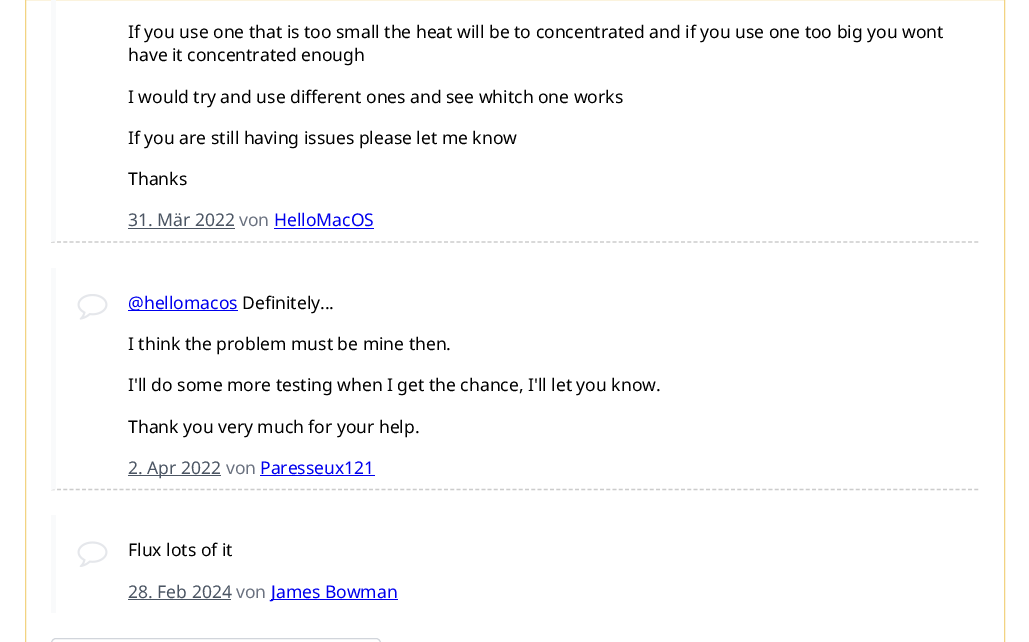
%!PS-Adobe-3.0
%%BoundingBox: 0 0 1029 642
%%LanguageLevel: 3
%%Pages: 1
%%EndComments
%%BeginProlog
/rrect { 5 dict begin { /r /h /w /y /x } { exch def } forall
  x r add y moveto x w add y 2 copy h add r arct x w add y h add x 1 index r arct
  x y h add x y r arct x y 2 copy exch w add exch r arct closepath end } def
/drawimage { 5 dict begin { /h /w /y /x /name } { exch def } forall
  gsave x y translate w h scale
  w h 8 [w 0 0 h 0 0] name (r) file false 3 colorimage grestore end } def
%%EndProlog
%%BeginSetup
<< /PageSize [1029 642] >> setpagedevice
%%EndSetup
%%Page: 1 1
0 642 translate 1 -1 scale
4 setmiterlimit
1 setgray
0 0 1029 642 rectfill
0.949 0.827 0.51 setrgbcolor
25.5 -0.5 979 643 rectstroke
0.8 setgray
1.2 setlinewidth
[3.75 2.49] 0 setdash
newpath 51 242 moveto 979 242 lineto stroke
0.976 0.98 0.984 setrgbcolor
newpath 51 242 moveto 51 -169 lineto 56 -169 lineto 56 241 lineto closepath fill
0.294 0.333 0.388 setrgbcolor
128 228 107 1 rectfill
0 0 0.933 setrgbcolor
274 228 100 1 rectfill
0.8 setgray
newpath 51 489.5 moveto 979 489.5 lineto stroke
0.976 0.98 0.984 setrgbcolor
newpath 51 490 moveto 51 268 lineto 56 268 lineto 56 489 lineto closepath fill
(images/1.raw) 77 294 31 26 drawimage
0 0 0.933 setrgbcolor
128 310 110 1 rectfill
0.294 0.333 0.388 setrgbcolor
128 475 93 1 rectfill
0 0 0.933 setrgbcolor
260 475 115 1 rectfill
0.976 0.98 0.984 setrgbcolor
51 515 5 98 rectfill
(images/2.raw) 77 541 31 26 drawimage
0.294 0.333 0.388 setrgbcolor
128 599 103 1 rectfill
0 0 0.933 setrgbcolor
271 599 127 1 rectfill
0.82 0.835 0.859 setrgbcolor
1 setlinewidth
[] 0 setdash
51.5 638.5 329 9 4.5 rrect stroke
/NotoSans-Regular [17.5 0 0 -17.5 0 0] selectfont
0 setgray
128 38 moveto (If you use one that is too small the heat will be to concentrated and if you use one too big you wont) show
128 61 moveto (have it concentrated enough) show
128 103 moveto (I would try and use different ones and see whitch one works) show
128 144 moveto (If you are still having issues please let me know) show
128 185 moveto (Thanks) show
0.294 0.333 0.388 setrgbcolor
128 226 moveto (31. Mär 2022) show
0.42 0.447 0.502 setrgbcolor
239 226 moveto (von) show
0 0 0.933 setrgbcolor
274 226 moveto (HelloMacOS) show
128 309 moveto (@hellomacos) show
0 setgray
242 309 moveto (Definitely...) show
128 350 moveto (I think the problem must be mine then.) show
128 391 moveto (I'll do some more testing when I get the chance, I'll let you know.) show
128 433 moveto (Thank you very much for your help.) show
0.294 0.333 0.388 setrgbcolor
128 474 moveto (2. Apr 2022) show
0.42 0.447 0.502 setrgbcolor
226 474 moveto (von) show
0 0 0.933 setrgbcolor
260 474 moveto (Paresseux121) show
0 setgray
128 556 moveto (Flux lots of it) show
0.294 0.333 0.388 setrgbcolor
128 598 moveto (28. Feb 2024) show
0.42 0.447 0.502 setrgbcolor
236 598 moveto (von) show
0 0 0.933 setrgbcolor
271 598 moveto (James Bowman) show
showpage
%%EOF
